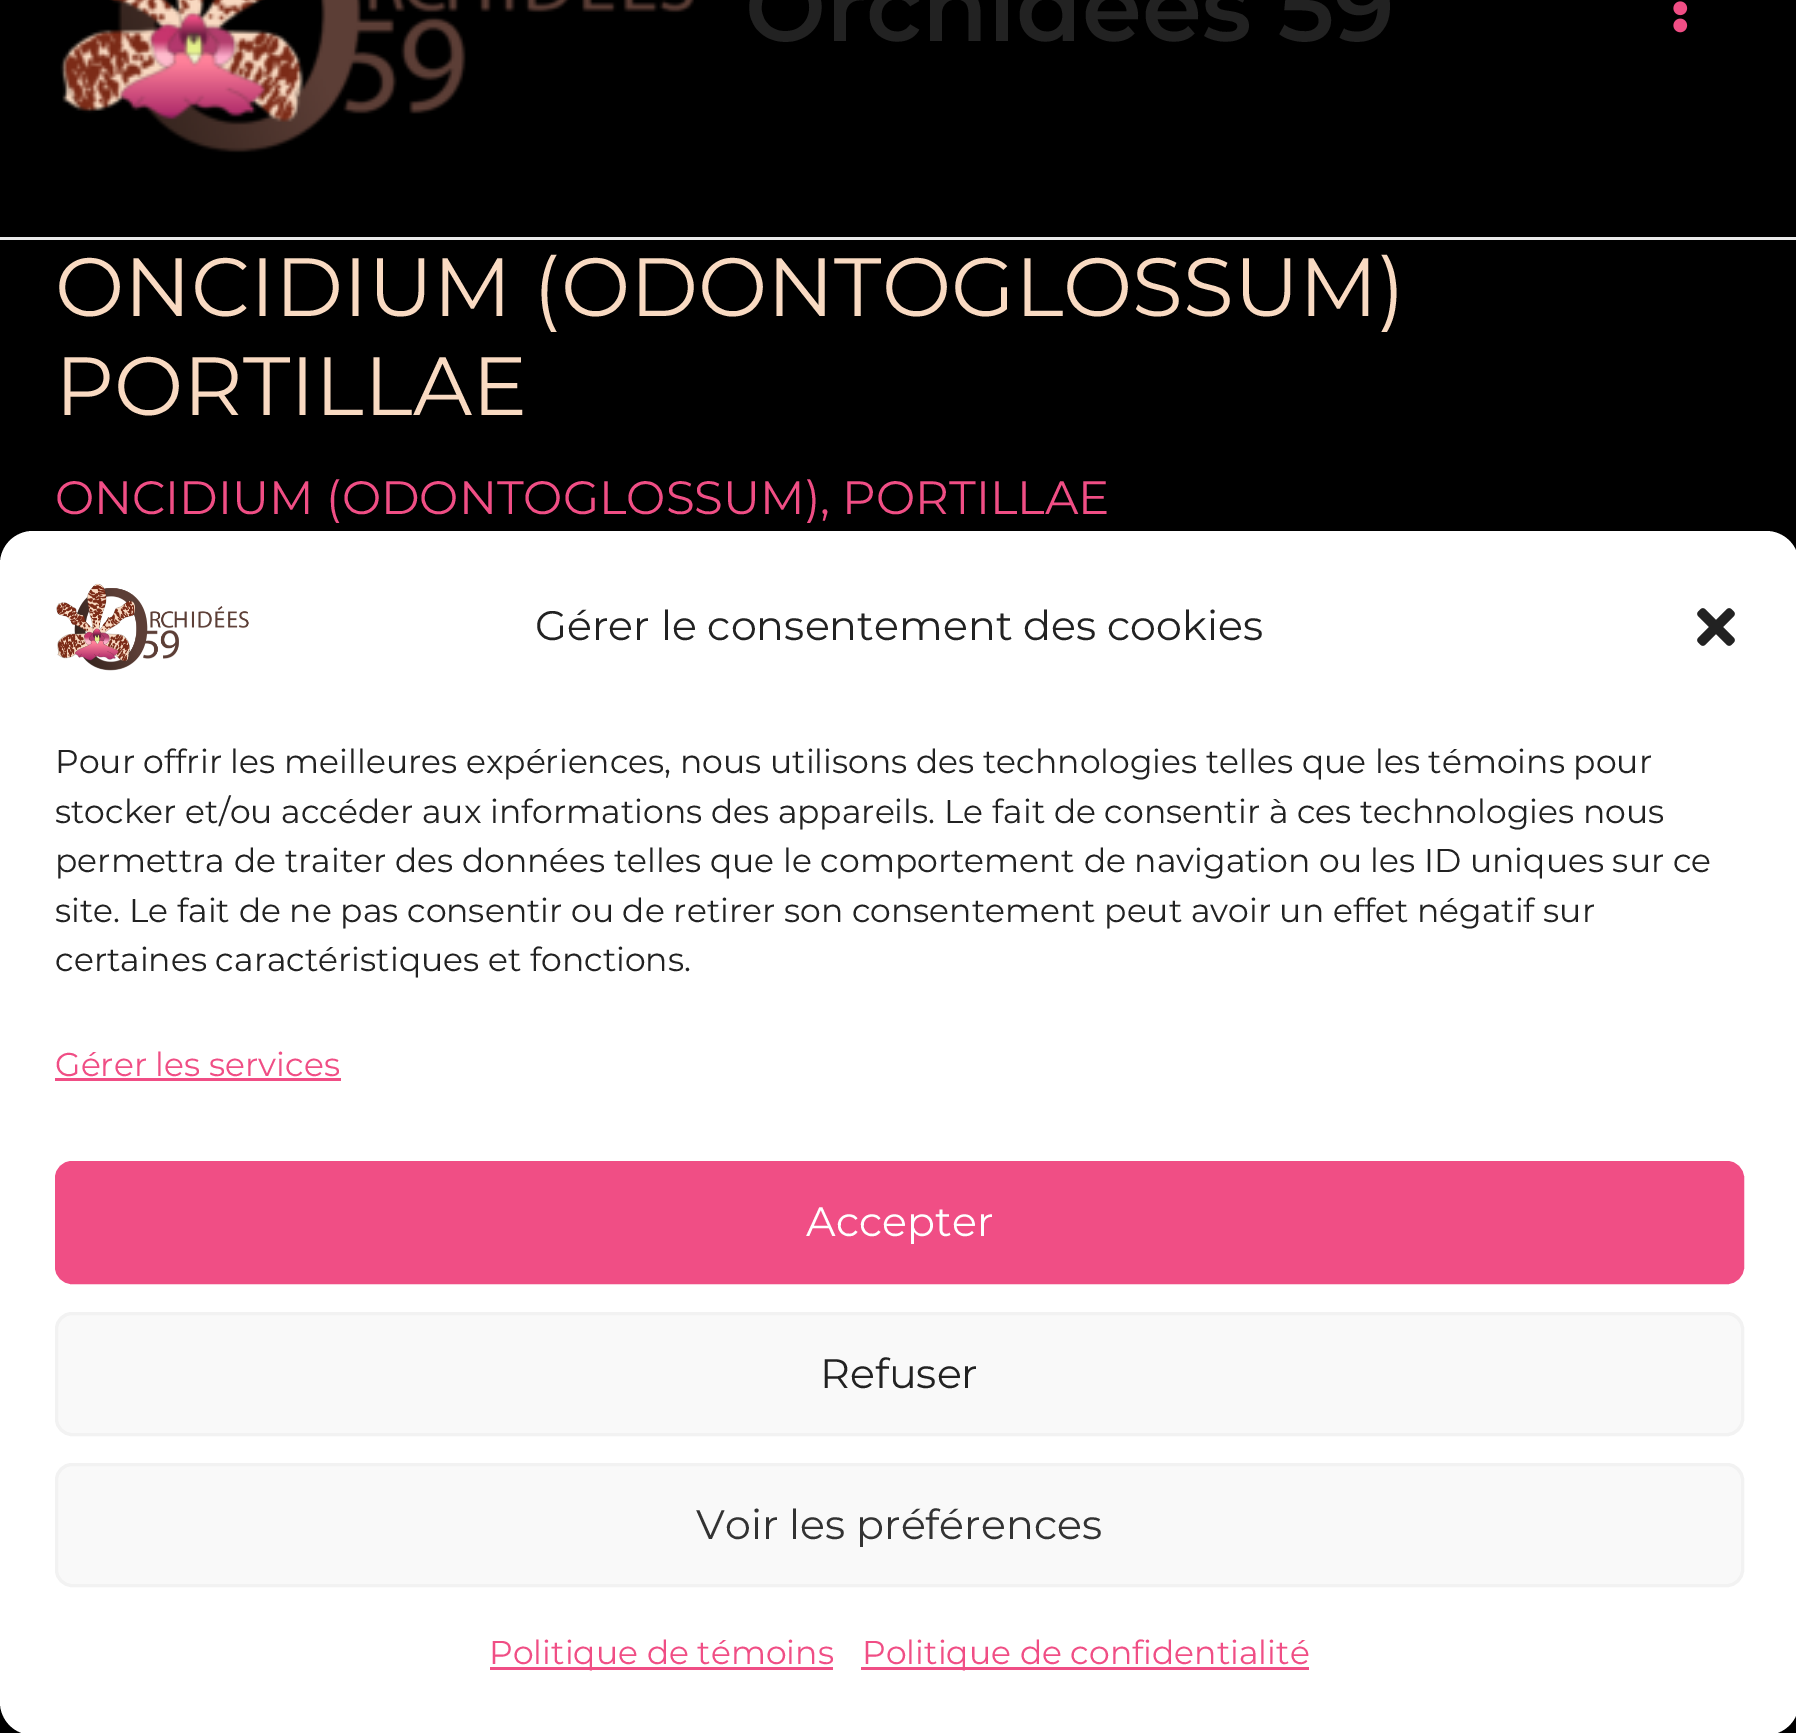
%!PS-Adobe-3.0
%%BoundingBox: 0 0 1796 1733
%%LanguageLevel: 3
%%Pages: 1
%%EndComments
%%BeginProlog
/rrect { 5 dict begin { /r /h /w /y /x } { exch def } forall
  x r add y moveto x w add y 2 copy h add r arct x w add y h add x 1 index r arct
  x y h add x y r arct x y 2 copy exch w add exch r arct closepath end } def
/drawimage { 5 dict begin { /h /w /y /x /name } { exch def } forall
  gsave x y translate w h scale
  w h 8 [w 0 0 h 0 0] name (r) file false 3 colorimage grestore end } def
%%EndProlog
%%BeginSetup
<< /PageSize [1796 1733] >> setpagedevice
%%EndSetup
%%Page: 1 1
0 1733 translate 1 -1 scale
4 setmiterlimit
0 setgray
0 0 1796 1733 rectfill
0.918 setgray
0 237 1796 3 rectfill
(images/1.raw) 60 0 634 153 drawimage
(images/2.raw) 1673 1 15 32 drawimage
1 setgray
0 531 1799 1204 33 rrect fill
(images/3.raw) 56 583 193 88 drawimage
(images/4.raw) 1697 608 38 38 drawimage
0.941 0.306 0.522 setrgbcolor
55 1078 286 3 rectfill
56.5 1162.5 1686 120 15.5 rrect gsave fill grestore
3 setlinewidth
stroke
0.976 setgray
56.5 1313.5 1686 121 15.5 rrect gsave fill grestore
0.949 setgray
stroke
0.976 setgray
56.5 1464.5 1686 121 15.5 rrect gsave fill grestore
0.949 setgray
stroke
0.941 0.306 0.522 setrgbcolor
490 1667 343 3 rectfill
861 1667 448 3 rectfill
/Montserrat-SemiBold [96.25 0 0 -96.25 0 0] selectfont
0.133 setgray
745 41 moveto (Orchidées 59) show
/Montserrat-Regular [82.5 0 0 -82.5 0 0] selectfont
0.976 0.855 0.761 setrgbcolor
55 316 moveto (ONCIDIUM \(ODONTOGLOSSUM\)) show
55 415 moveto (PORTILLAE) show
/Montserrat-Regular [46.75 0 0 -46.75 0 0] selectfont
0.941 0.306 0.522 setrgbcolor
55 514 moveto (ONCIDIUM \(ODONTOGLOSSUM\), PORTILLAE) show
/Montserrat-Regular [41.25 0 0 -41.25 0 0] selectfont
0.133 setgray
535 640 moveto (Gérer le consentement des cookies) show
/Montserrat-Regular [33 0 0 -33 0 0] selectfont
55 773 moveto (Pour offrir les meilleures expériences, nous utilisons des technologies telles que les témoins pour) show
55 823 moveto (stocker et/ou accéder aux informations des appareils. Le fait de consentir à ces technologies nous) show
55 872 moveto (permettra de traiter des données telles que le comportement de navigation ou les ID uniques sur ce) show
55 922 moveto (site. Le fait de ne pas consentir ou de retirer son consentement peut avoir un effet négatif sur) show
55 971 moveto (certaines caractéristiques et fonctions.) show
0.941 0.306 0.522 setrgbcolor
55 1076 moveto (Gérer les services) show
/Montserrat-Regular [41.25 0 0 -41.25 0 0] selectfont
1 setgray
806 1236 moveto (Accepter) show
0.133 setgray
820 1388 moveto (Refuser) show
0.2 setgray
696 1539 moveto (Voir les préférences) show
/Montserrat-Regular [33 0 0 -33 0 0] selectfont
0.941 0.306 0.522 setrgbcolor
489 1664 moveto (Politique de témoins) show
862 1664 moveto (Politique de confidentialité) show
showpage
%%EOF
